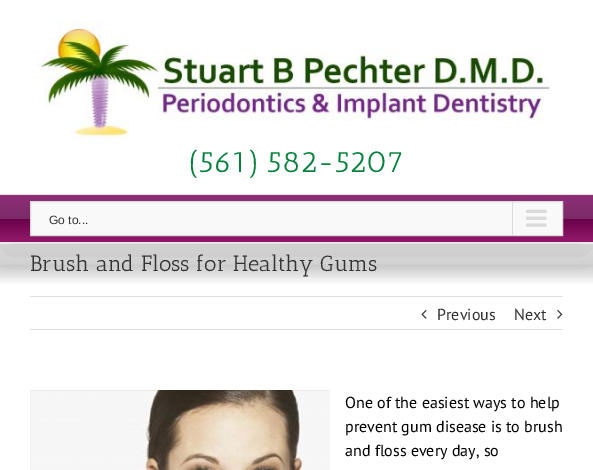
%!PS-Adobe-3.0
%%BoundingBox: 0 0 593 470
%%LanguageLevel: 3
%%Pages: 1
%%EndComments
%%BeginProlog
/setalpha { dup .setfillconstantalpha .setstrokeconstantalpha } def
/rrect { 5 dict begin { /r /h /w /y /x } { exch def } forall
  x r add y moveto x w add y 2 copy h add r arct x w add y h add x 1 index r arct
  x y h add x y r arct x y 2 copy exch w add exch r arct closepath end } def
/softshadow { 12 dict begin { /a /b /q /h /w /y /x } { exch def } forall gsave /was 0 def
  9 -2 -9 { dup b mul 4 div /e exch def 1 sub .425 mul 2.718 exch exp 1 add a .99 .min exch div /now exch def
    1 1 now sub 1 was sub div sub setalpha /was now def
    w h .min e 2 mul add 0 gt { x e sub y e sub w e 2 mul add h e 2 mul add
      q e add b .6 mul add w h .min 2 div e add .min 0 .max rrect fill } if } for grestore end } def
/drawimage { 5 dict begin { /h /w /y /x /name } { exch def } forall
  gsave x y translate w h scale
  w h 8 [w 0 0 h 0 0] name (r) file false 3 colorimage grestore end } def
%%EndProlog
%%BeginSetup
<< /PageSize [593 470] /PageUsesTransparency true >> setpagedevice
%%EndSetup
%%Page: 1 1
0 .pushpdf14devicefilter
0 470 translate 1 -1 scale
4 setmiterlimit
1 setgray
0 0 593 470 rectfill
gsave newpath 0 244 moveto 593 244 lineto 593 284 lineto 0 284 lineto closepath clip newpath
<< /ShadingType 2 /ColorSpace /DeviceRGB /Coords [297 244 297 285] /Extend [true true] /Function << /FunctionType 3 /Domain [0 1] /Functions [<< /FunctionType 2 /Domain [0 1] /C0 [0.886 0.886 0.886] /C1 [0.859 0.859 0.859] /N 1 >> << /FunctionType 2 /Domain [0 1] /C0 [0.859 0.859 0.859] /C1 [0.82 0.82 0.82] /N 1 >> << /FunctionType 2 /Domain [0 1] /C0 [0.82 0.82 0.82] /C1 [0.996 0.996 0.996] /N 1 >>] /Bounds [0.5 0.51] /Encode [0 1 0 1 0 1] >> >> shfill grestore
0.878 0.871 0.871 setrgbcolor
30 296 533 1 rectfill
(images/3.raw) 421 310 6 9 drawimage
(images/4.raw) 557 310 6 9 drawimage
gsave
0 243 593 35 rectclip
0 setgray
2 12 589 239 0 25 0.14 softshadow
grestore
0.898 setgray
0 194 593 1 rectfill
(images/1.raw) 37 20 513 120 drawimage
gsave newpath 0 195 moveto 593 195 lineto 593 242 lineto 0 242 lineto closepath clip newpath
<< /ShadingType 2 /ColorSpace /DeviceRGB /Coords [297 195 297 242] /Extend [true true] /Function << /FunctionType 3 /Domain [0 1] /Functions [<< /FunctionType 2 /Domain [0 1] /C0 [0.557 0.18 0.475] /C1 [0.486 0.165 0.4] /N 1 >> << /FunctionType 2 /Domain [0 1] /C0 [0.486 0.165 0.4] /C1 [0.416 0 0.29] /N 1 >> << /FunctionType 2 /Domain [0 1] /C0 [0.416 0 0.29] /C1 [0.573 0.102 0.416] /N 1 >>] /Bounds [0.5 0.51] /Encode [0 1 0 1 0 1] >> >> shfill grestore
0 242 593 1 rectfill
0.976 setgray
newpath 30.5 201.5 moveto 562.5 201.5 lineto 562.5 235.5 lineto 30.5 235.5 lineto closepath gsave fill grestore
0.855 setgray
stroke
512 202 1 33 rectfill
(images/2.raw) 526 209 21 18 drawimage
0.878 0.871 0.871 setrgbcolor
30 329 533 1 rectfill
(images/5.raw) 30 390 300 80 drawimage
/AnticSlab-Regular [30 0 0 -30 0 0] selectfont
0.016 0.506 0.231 setrgbcolor
189 172 moveto (\(561\) 582-5207) show
/LiberationSans-Regular [12 0 0 -12 0 0] selectfont
0.2 setgray
49 224 moveto (Go to...) show
/AnticSlab-Regular [22 0 0 -22 0 0] selectfont
30 271 moveto (Brush and Floss for Healthy Gums) show
/PTSans-Regular [16 0 0 -16 0 0] selectfont
437 320 moveto (Previous) show
514 320 moveto (Next) show
0 setgray
345 408 moveto (One of the easiest ways to help) show
345 432 moveto (prevent gum disease is to brush) show
345 456 moveto (and floss every day, so) show
.poppdf14devicefilter showpage
%%EOF
